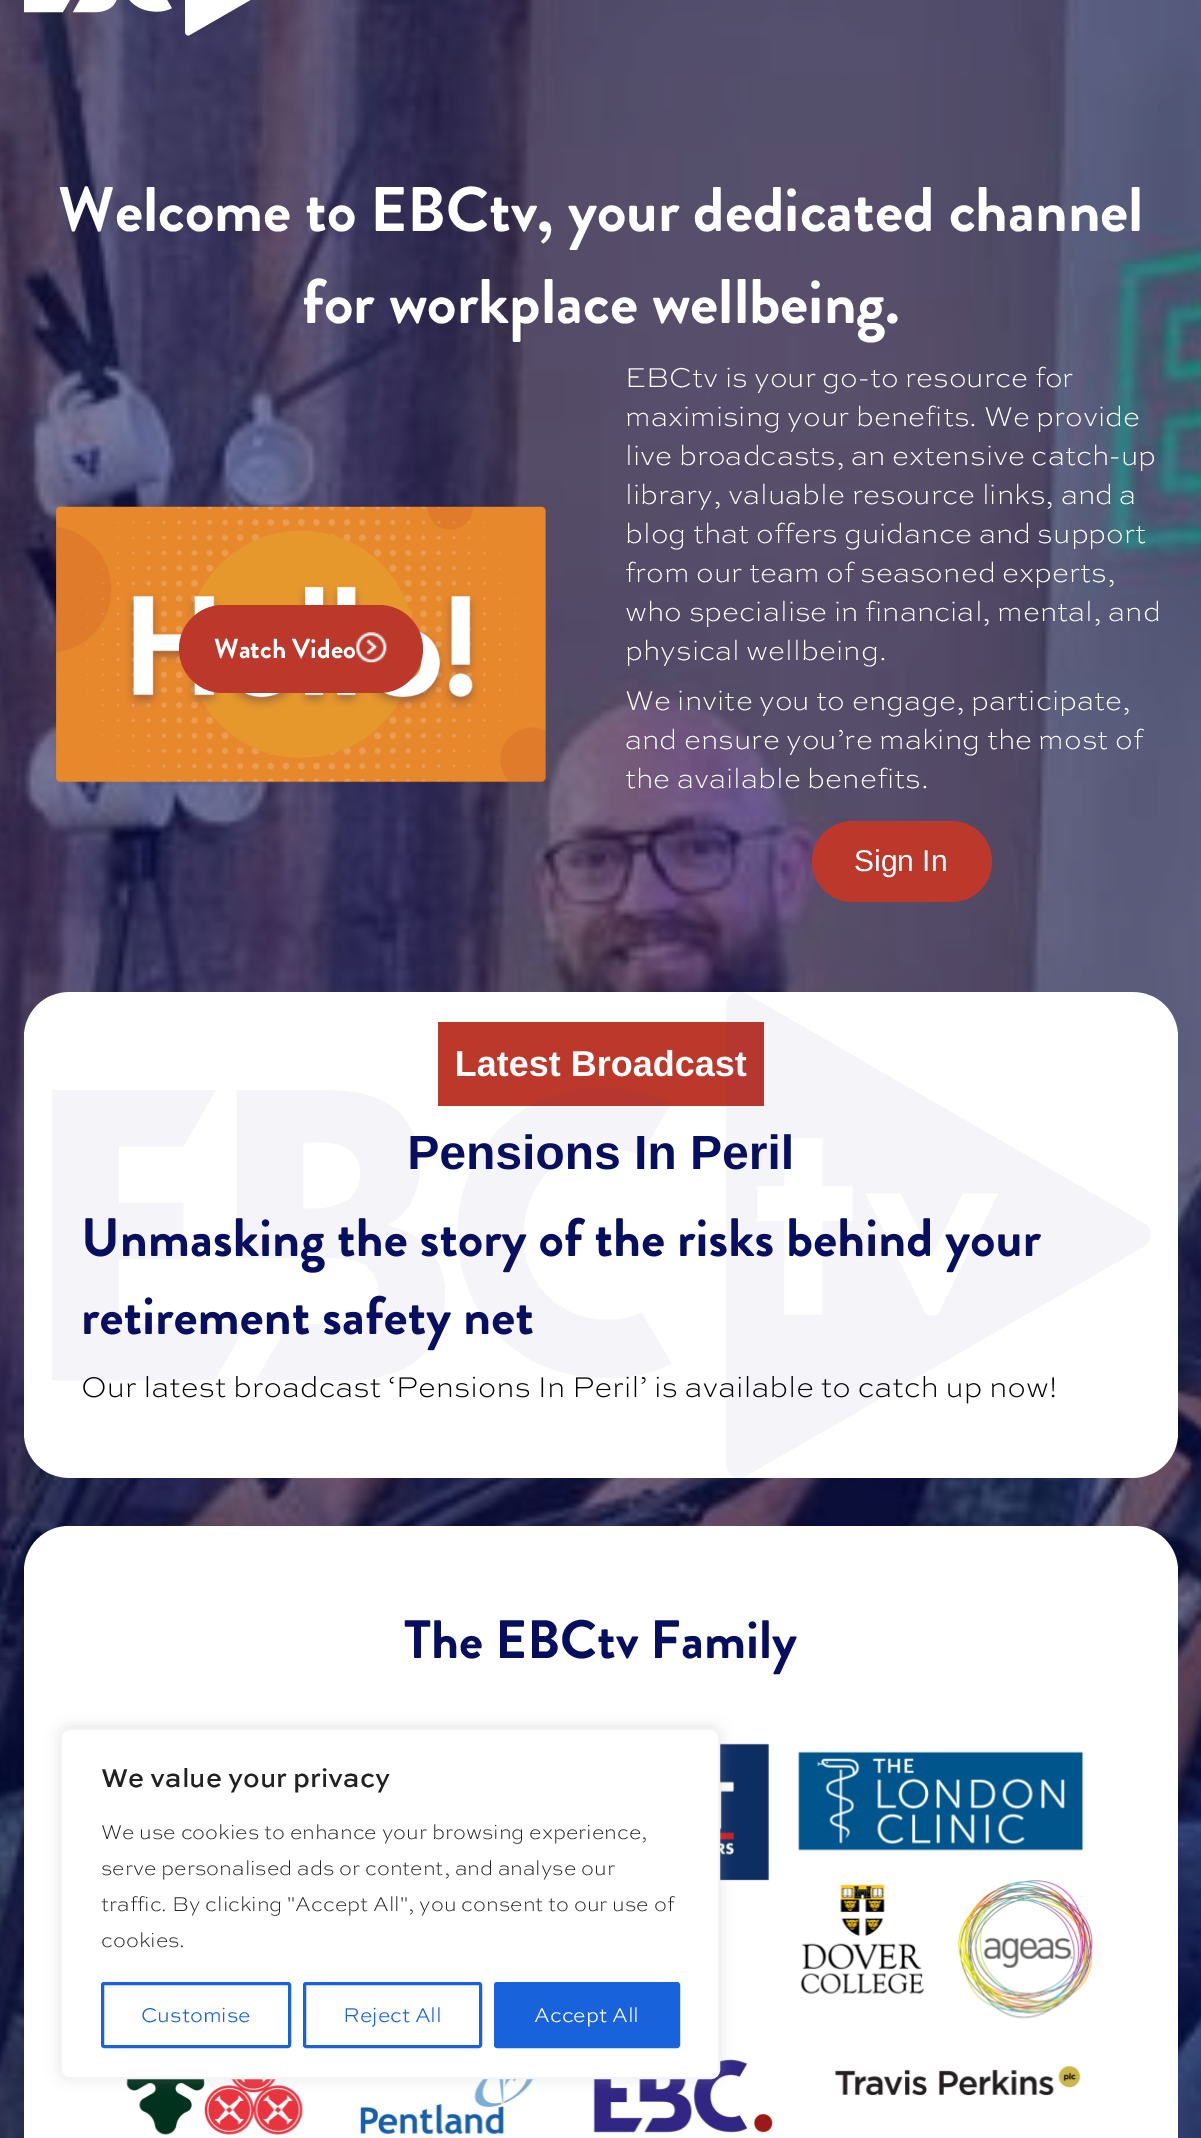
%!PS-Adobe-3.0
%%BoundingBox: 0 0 1201 2138
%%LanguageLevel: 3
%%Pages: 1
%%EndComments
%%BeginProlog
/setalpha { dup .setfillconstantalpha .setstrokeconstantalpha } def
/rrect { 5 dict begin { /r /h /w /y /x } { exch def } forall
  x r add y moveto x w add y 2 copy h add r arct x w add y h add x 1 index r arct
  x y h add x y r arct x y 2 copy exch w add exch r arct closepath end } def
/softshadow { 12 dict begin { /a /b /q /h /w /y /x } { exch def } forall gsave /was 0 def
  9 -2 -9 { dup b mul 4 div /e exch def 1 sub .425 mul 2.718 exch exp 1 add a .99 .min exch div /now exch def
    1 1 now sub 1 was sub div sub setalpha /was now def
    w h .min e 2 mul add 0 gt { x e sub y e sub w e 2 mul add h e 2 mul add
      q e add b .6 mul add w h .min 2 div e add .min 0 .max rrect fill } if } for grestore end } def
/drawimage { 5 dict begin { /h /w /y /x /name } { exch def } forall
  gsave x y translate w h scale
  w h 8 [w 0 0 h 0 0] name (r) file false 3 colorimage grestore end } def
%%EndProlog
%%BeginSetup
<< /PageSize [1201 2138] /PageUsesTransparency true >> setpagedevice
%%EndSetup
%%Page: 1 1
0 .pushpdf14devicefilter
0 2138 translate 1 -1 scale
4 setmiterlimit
1 setgray
0 0 1201 2138 rectfill
(images/1.raw) 0 0 1201 2138 drawimage
(images/2.raw) 24 0 227 36 drawimage
(images/3.raw) 53 504 493 281 drawimage
0.737 0.22 0.169 setrgbcolor
179 605 244 88 44 rrect fill
(images/4.raw) 356 632 31 31 drawimage
812 821 180 81 40.5 rrect fill
1 setgray
24 992 1154 486 45 rrect fill
0.737 0.22 0.169 setrgbcolor
438 1022 326 84 rectfill
1 setgray
24 1526 1154 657 45 rrect fill
(images/6.raw) 116 1734 978 401 drawimage
0.675 0.671 0.671 setrgbcolor
60 1727 660 351 9 7.5 0.3 softshadow
1 setgray
61 1729 658 349 8 rrect gsave fill grestore
0.957 setgray
2 setlinewidth
stroke
0.094 0.388 0.863 setrgbcolor
3 setlinewidth
102.5 1983.5 187 63 1.5 rrect stroke
304.5 1983.5 176 63 1.5 rrect stroke
495.5 1983.5 183 63 1.5 rrect gsave fill grestore
stroke
/BrandonGrotesque-Bold [63 0 0 -63 0 0] selectfont
1 setgray
58 231 moveto (Welcome to EBCtv, your dedicated channel) show
302 323 moveto (for workplace wellbeing.) show
/BrandonGrotesque-Bold [27.5 0 0 -27.5 0 0] selectfont
214 658 moveto (Watch Video) show
/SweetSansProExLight-Light [28.75 0 0 -28.75 0 0] selectfont
625 387 moveto (EBCtv is your go-to resource for) show
625 426 moveto (maximising your benefits. We provide) show
625 465 moveto (live broadcasts, an extensive catch-up) show
625 504 moveto (library, valuable resource links, and a) show
625 543 moveto (blog that offers guidance and support) show
625 582 moveto (from our team of seasoned experts,) show
625 621 moveto (who specialise in financial, mental, and) show
625 660 moveto (physical wellbeing.) show
625 710 moveto (We invite you to engage, participate,) show
625 749 moveto (and ensure you’re making the most of) show
625 788 moveto (the available benefits.) show
/LiberationSans-Regular [30 0 0 -30 0 0] selectfont
854 871 moveto (Sign In) show
/LiberationSans-Bold [36 0 0 -36 0 0] selectfont
455 1076 moveto (Latest Broadcast) show
/LiberationSans-Bold [48 0 0 -48 0 0] selectfont
0.024 0.055 0.373 setrgbcolor
407 1169 moveto (Pensions In Peril) show
/BrandonGrotesque-Bold [54 0 0 -54 0 0] selectfont
81 1256 moveto (Unmasking the story of the risks behind your) show
81 1334 moveto (retirement safety net) show
/SweetSansProExLight-Light [30 0 0 -30 0 0] selectfont
0 setgray
81 1397 moveto (Our latest broadcast ‘Pensions In Peril’ is available to catch up now!) show
(images/5.raw) 52 992 1099 486 drawimage
/BrandonGrotesque-Bold [54 0 0 -54 0 0] selectfont
0.024 0.055 0.373 setrgbcolor
404 1658 moveto (The EBCtv Family) show
/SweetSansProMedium-Medium [27 0 0 -27 0 0] selectfont
0.129 setgray
101 1787 moveto (We value your privacy) show
/SweetSansProExLight-Light [21 0 0 -21 0 0] selectfont
101 1839 moveto (We use cookies to enhance your browsing experience,) show
101 1875 moveto (serve personalised ads or content, and analyse our) show
101 1911 moveto (traffic. By clicking "Accept All", you consent to our use of) show
101 1947 moveto (cookies.) show
/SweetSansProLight-Light [21 0 0 -21 0 0] selectfont
0.094 0.388 0.863 setrgbcolor
141 2022 moveto (Customise) show
343 2022 moveto (Reject All) show
1 setgray
534 2022 moveto (Accept All) show
.poppdf14devicefilter showpage
%%EOF
